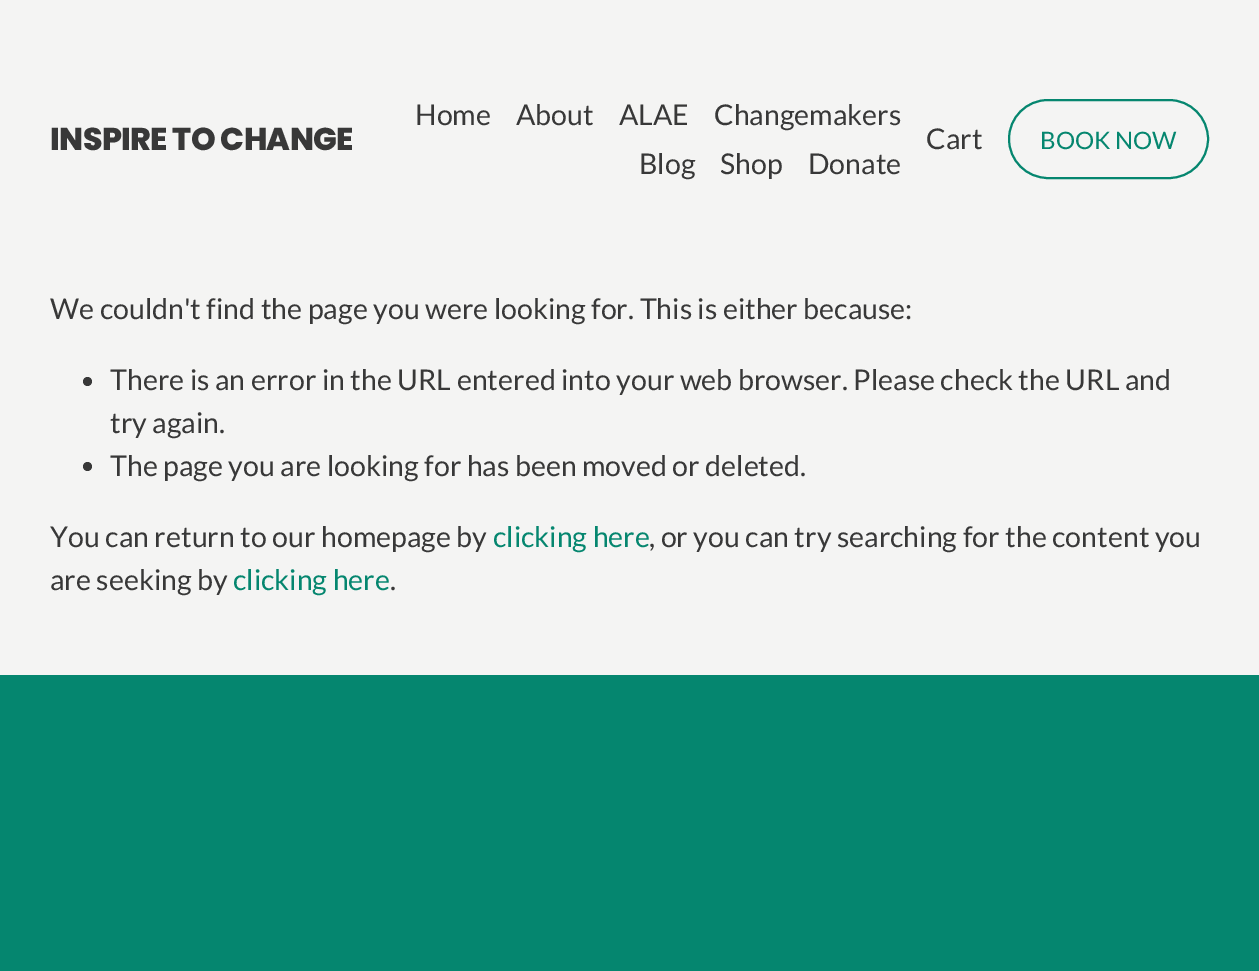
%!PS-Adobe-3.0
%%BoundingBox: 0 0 1259 971
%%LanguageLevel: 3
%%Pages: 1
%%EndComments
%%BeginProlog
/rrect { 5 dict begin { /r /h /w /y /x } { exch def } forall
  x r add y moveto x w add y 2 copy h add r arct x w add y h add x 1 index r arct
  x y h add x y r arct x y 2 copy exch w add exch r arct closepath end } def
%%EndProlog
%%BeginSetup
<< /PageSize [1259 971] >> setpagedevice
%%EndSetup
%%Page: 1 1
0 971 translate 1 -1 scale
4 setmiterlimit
0.957 0.957 0.953 setrgbcolor
0 0 1259 971 rectfill
0.02 0.525 0.435 setrgbcolor
2 setlinewidth
1009 100 199 78 39 rrect stroke
0.22 setgray
newpath 87.5 381.5 4.5 0 360 arc closepath fill
newpath 87.5 466.5 4.5 0 360 arc closepath fill
0.02 0.525 0.435 setrgbcolor
0 675 1259 296 rectfill
/Poppins-ExtraBold [31.5 0 0 -31.5 0 0] selectfont
0.22 setgray
50 150 moveto -0.6 0 (INSPIRE TO CHANGE) ashow
/Lato-Regular [28.55 0 0 -28.55 0 0] selectfont
415 125 moveto (Home) show
516 125 moveto (About) show
619 125 moveto (ALAE) show
714 125 moveto (Changemakers) show
639 174 moveto (Blog) show
720 174 moveto (Shop) show
808 174 moveto (Donate) show
926 149 moveto (Cart) show
/Lato-Regular [24 0 0 -24 0 0] selectfont
0.02 0.525 0.435 setrgbcolor
1040 149 moveto (BOOK NOW) show
/Lato-Regular [28.55 0 0 -28.55 0 0] selectfont
0.22 setgray
50 319 moveto (We couldn't find the page you were looking for. This is either because:) show
110 390 moveto (There is an error in the URL entered into your web browser. Please check the URL and) show
110 433 moveto (try again.) show
110 476 moveto (The page you are looking for has been moved or deleted.) show
50 547 moveto (You can return to our homepage by) show
0.02 0.525 0.435 setrgbcolor
493 547 moveto (clicking here) show
0.22 setgray
649 547 moveto (, or you can try searching for the content you) show
50 590 moveto (are seeking by) show
0.02 0.525 0.435 setrgbcolor
233 590 moveto (clicking here) show
0.22 setgray
390 590 moveto (.) show
showpage
%%EOF
